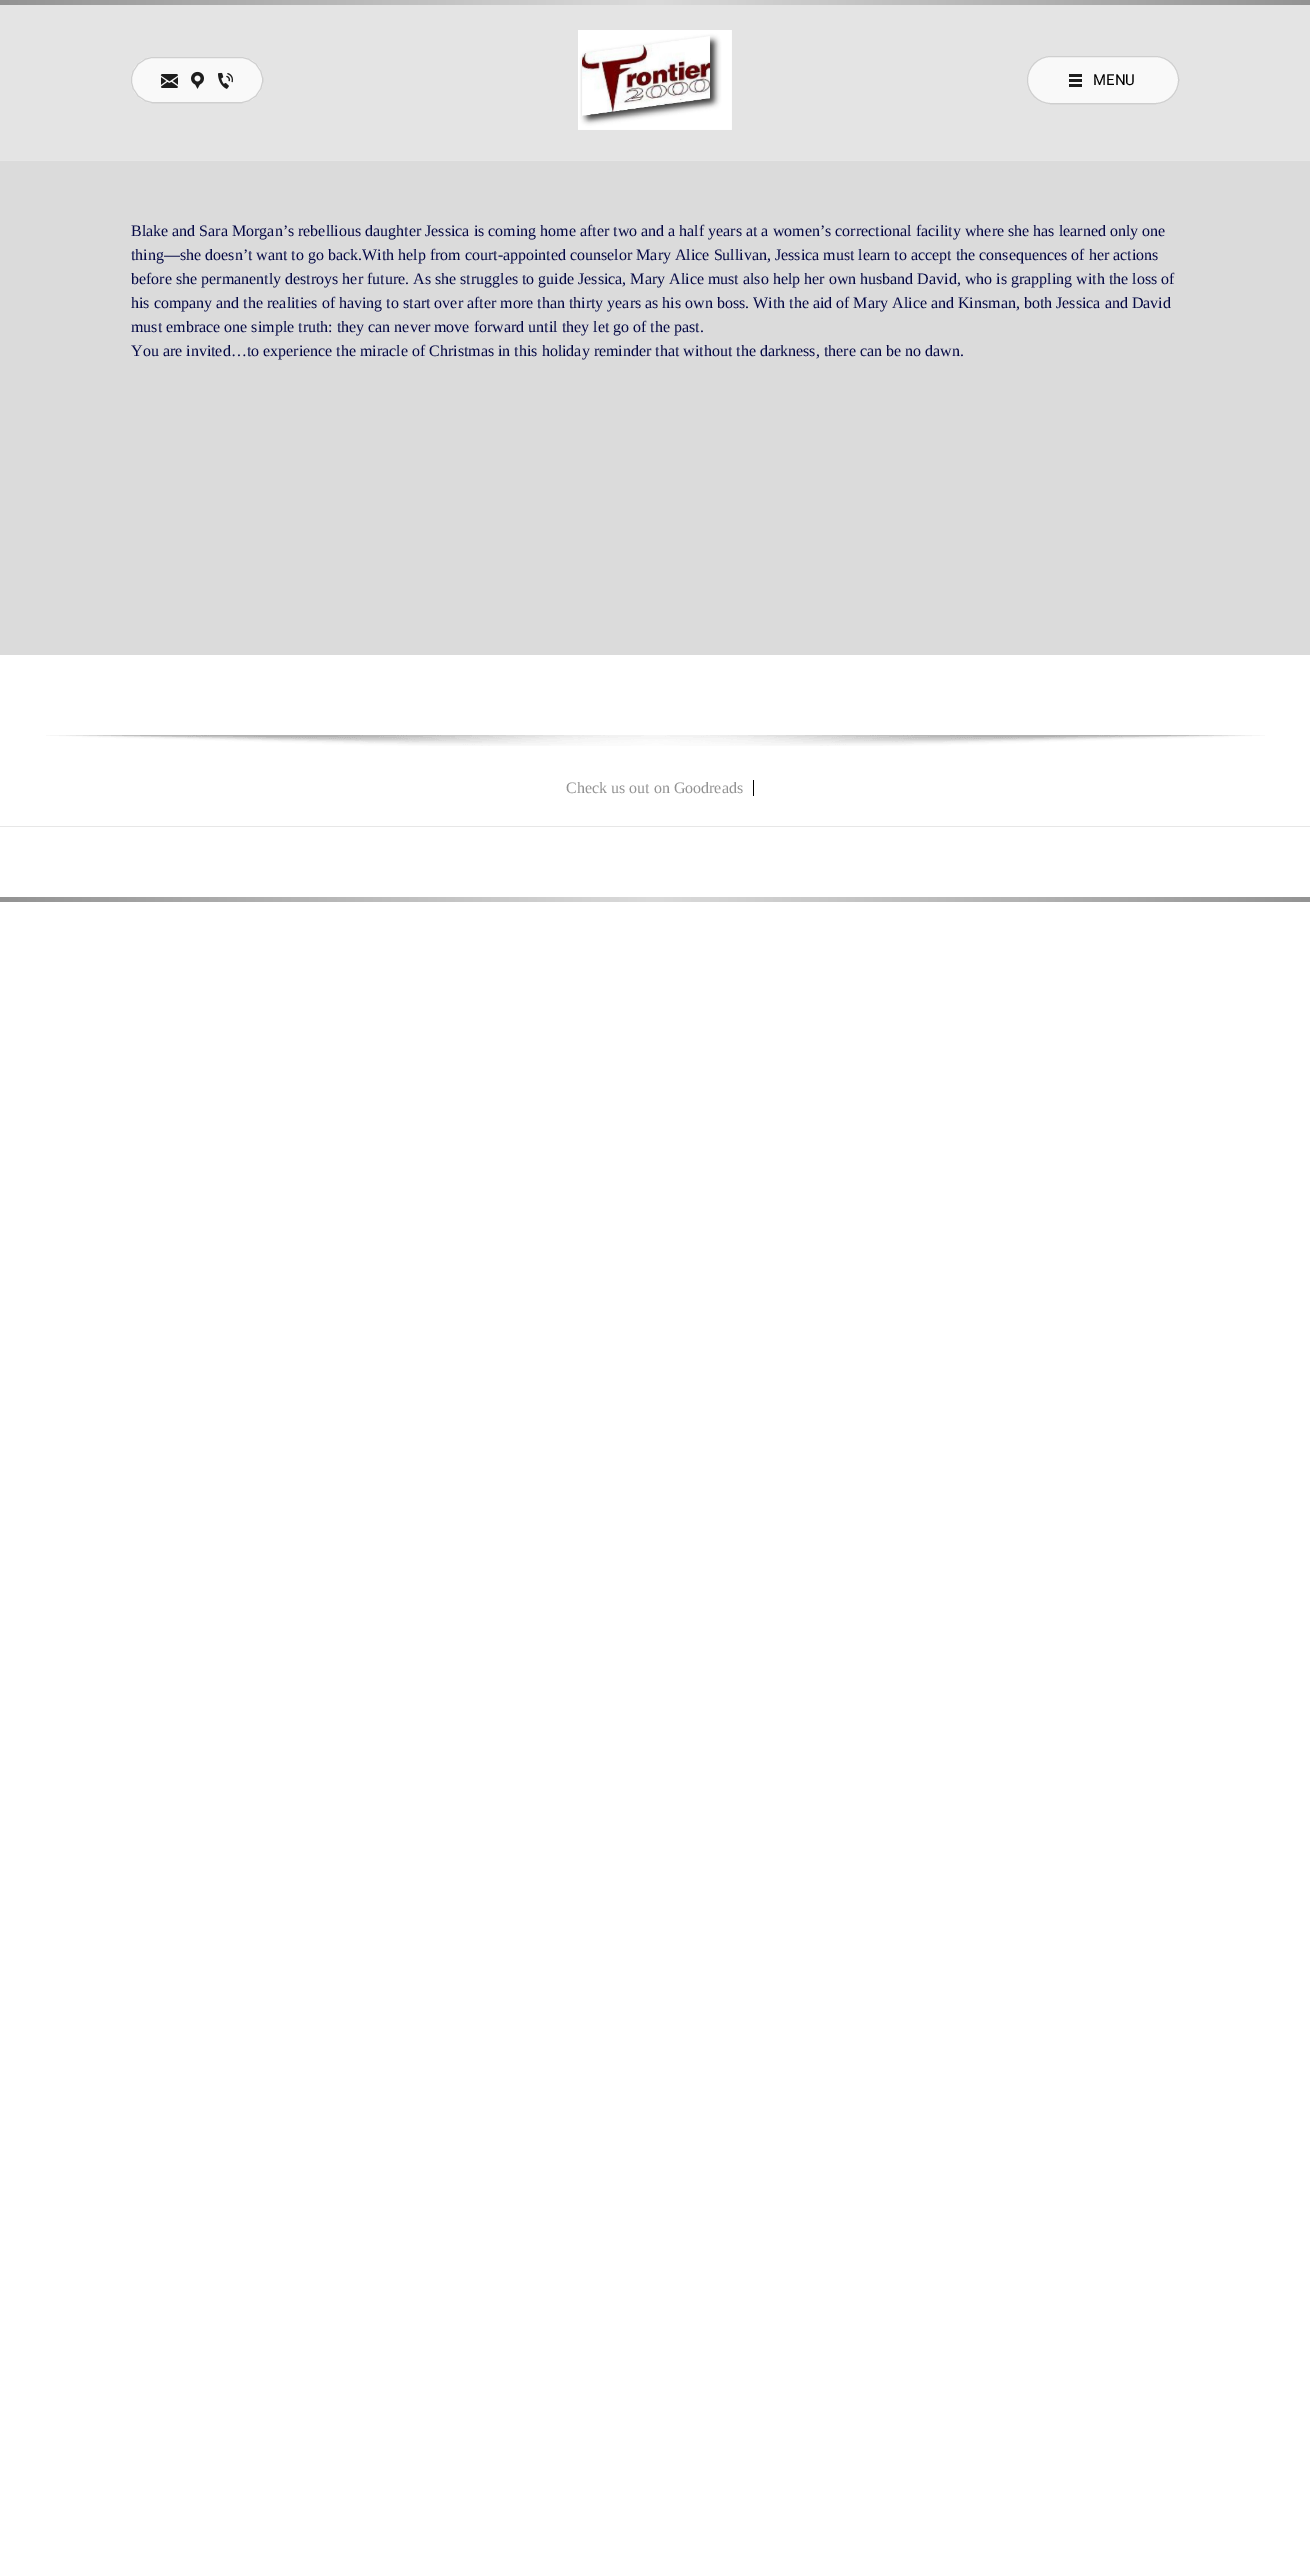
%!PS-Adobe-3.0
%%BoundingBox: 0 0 1310 2549
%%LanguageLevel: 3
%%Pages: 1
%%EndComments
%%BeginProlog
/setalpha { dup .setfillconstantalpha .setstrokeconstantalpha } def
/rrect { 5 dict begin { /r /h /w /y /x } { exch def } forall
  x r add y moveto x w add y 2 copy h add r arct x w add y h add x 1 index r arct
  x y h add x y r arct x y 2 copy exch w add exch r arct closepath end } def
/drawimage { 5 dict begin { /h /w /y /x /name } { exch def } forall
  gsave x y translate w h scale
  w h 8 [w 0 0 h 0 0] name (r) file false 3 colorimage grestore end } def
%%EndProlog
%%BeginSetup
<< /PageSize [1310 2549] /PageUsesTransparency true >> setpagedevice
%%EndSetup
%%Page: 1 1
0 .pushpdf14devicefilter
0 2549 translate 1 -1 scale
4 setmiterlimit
1 setgray
0 0 1310 2549 rectfill
gsave newpath 0 0 moveto 1310 0 lineto 1310 5 lineto 0 5 lineto closepath clip newpath
<< /ShadingType 2 /ColorSpace /DeviceRGB /Coords [0 2.5 1310 2.5] /Extend [true true] /Function << /FunctionType 3 /Domain [0 1] /Functions [<< /FunctionType 2 /Domain [0 1] /C0 [0.576 0.576 0.576] /C1 [0.859 0.859 0.859] /N 1 >> << /FunctionType 2 /Domain [0 1] /C0 [0.859 0.859 0.859] /C1 [0.576 0.576 0.576] /N 1 >>] /Bounds [0.5] /Encode [0 1 0 1] >> >> shfill grestore
0.894 setgray
0 5 1310 155 rectfill
0.902 setgray
0 160 1310 1 rectfill
0.976 setgray
131 57 132 46 23 rrect fill
(images/1.raw) 160 71 73 18 drawimage
0.17 setalpha
0 setgray
131.5 57.5 131 45 22.5 rrect stroke
1 setalpha
(images/2.raw) 578 30 154 100 drawimage
0.976 setgray
1027 56 152 48 24 rrect fill
0.17 setalpha
0 setgray
1027.5 56.5 151 47 23.5 rrect stroke
1 setalpha
0.118 setgray
1069 74 13 3 rectfill
1069 79 13 3 rectfill
1069 84 13 3 rectfill
0.859 setgray
0 161 1310 494 rectfill
(images/3.raw) 46 735 1219 11 drawimage
0.906 setgray
0 826 1310 1 rectfill
0 setgray
753 780 1 16 rectfill
gsave newpath 0 897 moveto 1310 897 lineto 1310 902 lineto 0 902 lineto closepath clip newpath
<< /ShadingType 2 /ColorSpace /DeviceRGB /Coords [0 900 1310 900] /Extend [true true] /Function << /FunctionType 3 /Domain [0 1] /Functions [<< /FunctionType 2 /Domain [0 1] /C0 [0.576 0.576 0.576] /C1 [0.859 0.859 0.859] /N 1 >> << /FunctionType 2 /Domain [0 1] /C0 [0.859 0.859 0.859] /C1 [0.576 0.576 0.576] /N 1 >>] /Bounds [0.5] /Encode [0 1 0 1] >> >> shfill grestore
/Roboto-Regular [15 0 0 -15 0 0] selectfont
1093 85 moveto (MENU) show
/LiberationSerif-Regular [16 0 0 -16 0 0] selectfont
0.024 0.039 0.275 setrgbcolor
131 236 moveto (Blake and Sara Morgan’s rebellious daughter Jessica is coming home after two and a half years at a women’s correctional facility where she has learned only one) show
131 260 moveto (thing—she doesn’t want to go back.With help from court-appointed counselor Mary Alice Sullivan, Jessica must learn to accept the consequences of her actions) show
131 284 moveto (before she permanently destroys her future. As she struggles to guide Jessica, Mary Alice must also help her own husband David, who is grappling with the loss of) show
131 308 moveto (his company and the realities of having to start over after more than thirty years as his own boss. With the aid of Mary Alice and Kinsman, both Jessica and David) show
131 332 moveto (must embrace one simple truth: they can never move forward until they let go of the past.) show
131 356 moveto (You are invited…to experience the miracle of Christmas in this holiday reminder that without the darkness, there can be no dawn.) show
0.576 setgray
566 793 moveto (Check us out on Goodreads) show
.poppdf14devicefilter showpage
%%EOF
